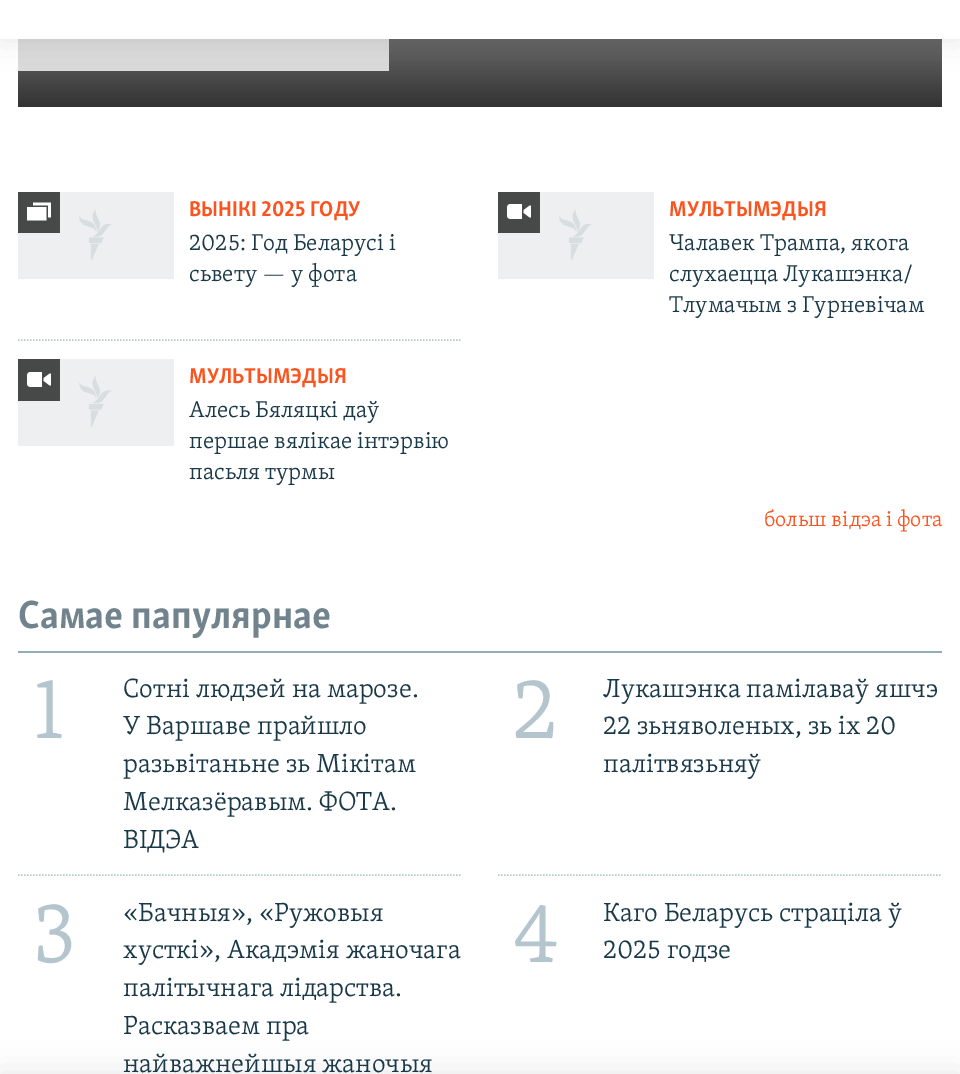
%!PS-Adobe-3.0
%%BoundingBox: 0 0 960 1074
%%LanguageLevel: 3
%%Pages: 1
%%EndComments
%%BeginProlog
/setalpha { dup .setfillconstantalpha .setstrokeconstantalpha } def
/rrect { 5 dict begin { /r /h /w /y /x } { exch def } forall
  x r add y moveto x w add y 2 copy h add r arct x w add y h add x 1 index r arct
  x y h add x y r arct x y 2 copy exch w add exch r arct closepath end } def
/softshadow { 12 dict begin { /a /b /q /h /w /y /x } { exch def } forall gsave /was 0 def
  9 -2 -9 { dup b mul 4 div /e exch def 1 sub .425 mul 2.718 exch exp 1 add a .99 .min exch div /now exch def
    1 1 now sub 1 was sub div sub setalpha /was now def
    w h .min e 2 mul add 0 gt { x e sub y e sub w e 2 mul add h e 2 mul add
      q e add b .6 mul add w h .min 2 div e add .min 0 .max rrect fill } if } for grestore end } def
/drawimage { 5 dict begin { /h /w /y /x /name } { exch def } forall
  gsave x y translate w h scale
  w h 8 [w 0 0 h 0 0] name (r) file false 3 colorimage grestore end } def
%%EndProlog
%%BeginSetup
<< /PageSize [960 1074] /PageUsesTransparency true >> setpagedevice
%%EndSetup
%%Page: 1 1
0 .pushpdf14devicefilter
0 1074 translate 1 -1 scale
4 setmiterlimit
1 setgray
0 0 960 1074 rectfill
gsave newpath 18 39 moveto 942 39 lineto 942 107 lineto 18 107 lineto closepath clip newpath
<< /ShadingType 2 /ColorSpace /DeviceRGB /Coords [480 107 480 -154] /Extend [true true] /Function << /FunctionType 2 /Domain [0 1] /C0 [0.2 0.2 0.2] /C1 [1 1 1] /N 1 >> >> shfill grestore
0.855 setgray
18 39 371 32 rectfill
0 setgray
0 -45 960 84 0 15 0.1 softshadow
1 setgray
0 0 960 39 rectfill
0 setgray
0 1074 960 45 0 15 0.1 softshadow
0.929 0.937 0.941 setrgbcolor
18 192 156 87 rectfill
(images/1.raw) 79 209 33 51 drawimage
0.278 0.282 0.282 setrgbcolor
18 192 42 41 rectfill
(images/2.raw) 27 202 24 19 drawimage
0.929 0.937 0.941 setrgbcolor
498 192 156 87 rectfill
(images/1.raw) 559 209 33 51 drawimage
0.278 0.282 0.282 setrgbcolor
498 192 42 41 rectfill
(images/3.raw) 507 204 24 15 drawimage
0.706 0.773 0.804 setrgbcolor
1.5 setlinewidth
[1.5 1.5] 0 setdash
newpath 18 340 moveto 462 340 lineto stroke
0.929 0.937 0.941 setrgbcolor
18 359 156 87 rectfill
(images/4.raw) 79 376 33 51 drawimage
0.278 0.282 0.282 setrgbcolor
18 359 42 42 rectfill
(images/3.raw) 27 372 24 15 drawimage
0.584 0.678 0.725 setrgbcolor
18 651 924 2 rectfill
0.706 0.773 0.804 setrgbcolor
newpath 18 875 moveto 462 875 lineto stroke
newpath 498 875 moveto 942 875 lineto stroke
/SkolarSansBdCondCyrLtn-Bold [22 0 0 -22 0 0] selectfont
0.98 0.329 0.125 setrgbcolor
189 216 moveto (ВЫНІКІ 2025 ГОДУ) show
/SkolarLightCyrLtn-Light [23.6 0 0 -23.6 0 0] selectfont
0.102 0.224 0.282 setrgbcolor
189 250 moveto (2025: Год Беларусі і) show
189 281 moveto (сьвету — у фота) show
/SkolarSansBdCondCyrLtn-Bold [22 0 0 -22 0 0] selectfont
0.98 0.329 0.125 setrgbcolor
669 216 moveto (МУЛЬТЫМЭДЫЯ) show
/SkolarLightCyrLtn-Light [23.6 0 0 -23.6 0 0] selectfont
0.102 0.224 0.282 setrgbcolor
669 250 moveto (Чалавек Трампа, якога) show
669 281 moveto (слухаецца Лукашэнка/) show
669 312 moveto (Тлумачым з Гурневічам) show
/SkolarSansBdCondCyrLtn-Bold [22 0 0 -22 0 0] selectfont
0.98 0.329 0.125 setrgbcolor
189 383 moveto (МУЛЬТЫМЭДЫЯ) show
/SkolarLightCyrLtn-Light [23.6 0 0 -23.6 0 0] selectfont
0.102 0.224 0.282 setrgbcolor
189 417 moveto (Алесь Бяляцкі даў) show
189 448 moveto (першае вялікае інтэрвію) show
189 479 moveto (пасьля турмы) show
/SkolarLightCyrLtn-Light [22 0 0 -22 0 0] selectfont
0.98 0.329 0.125 setrgbcolor
764 526 moveto (больш відэа і фота) show
/SkolarSansBdCondCyrLtn-Bold [40.5 0 0 -40.5 0 0] selectfont
0.443 0.514 0.553 setrgbcolor
18 628 moveto (Самае папулярнае) show
/SkolarLightCyrLtn-Light [89 0 0 -89 0 0] selectfont
0.706 0.773 0.804 setrgbcolor
32 738 moveto (1) show
/SkolarLightCyrLtn-Light [27 0 0 -27 0 0] selectfont
0.102 0.224 0.282 setrgbcolor
123 697 moveto (Сотні людзей на марозе.) show
123 734 moveto (У Варшаве прайшло) show
123 772 moveto (разьвітаньне зь Мікітам) show
123 810 moveto (Мелказёравым. ФОТА.) show
123 848 moveto (ВІДЭА) show
/SkolarLightCyrLtn-Light [89 0 0 -89 0 0] selectfont
0.706 0.773 0.804 setrgbcolor
512 738 moveto (2) show
/SkolarLightCyrLtn-Light [27 0 0 -27 0 0] selectfont
0.102 0.224 0.282 setrgbcolor
603 697 moveto (Лукашэнка памілаваў яшчэ) show
603 734 moveto (22 зьняволеных, зь іх 20) show
603 772 moveto (палітвязьняў) show
/SkolarLightCyrLtn-Light [89 0 0 -89 0 0] selectfont
0.706 0.773 0.804 setrgbcolor
32 962 moveto (3) show
/SkolarLightCyrLtn-Light [27 0 0 -27 0 0] selectfont
0.102 0.224 0.282 setrgbcolor
123 921 moveto («Бачныя», «Ружовыя) show
123 958 moveto (хусткі», Акадэмія жаночага) show
123 996 moveto (палітычнага лідарства.) show
123 1034 moveto (Расказваем пра) show
123 1072 moveto (найважнейшыя жаночыя) show
/SkolarLightCyrLtn-Light [89 0 0 -89 0 0] selectfont
0.706 0.773 0.804 setrgbcolor
512 962 moveto (4) show
/SkolarLightCyrLtn-Light [27 0 0 -27 0 0] selectfont
0.102 0.224 0.282 setrgbcolor
603 921 moveto (Каго Беларусь страціла ў) show
603 958 moveto (2025 годзе) show
.poppdf14devicefilter showpage
%%EOF
